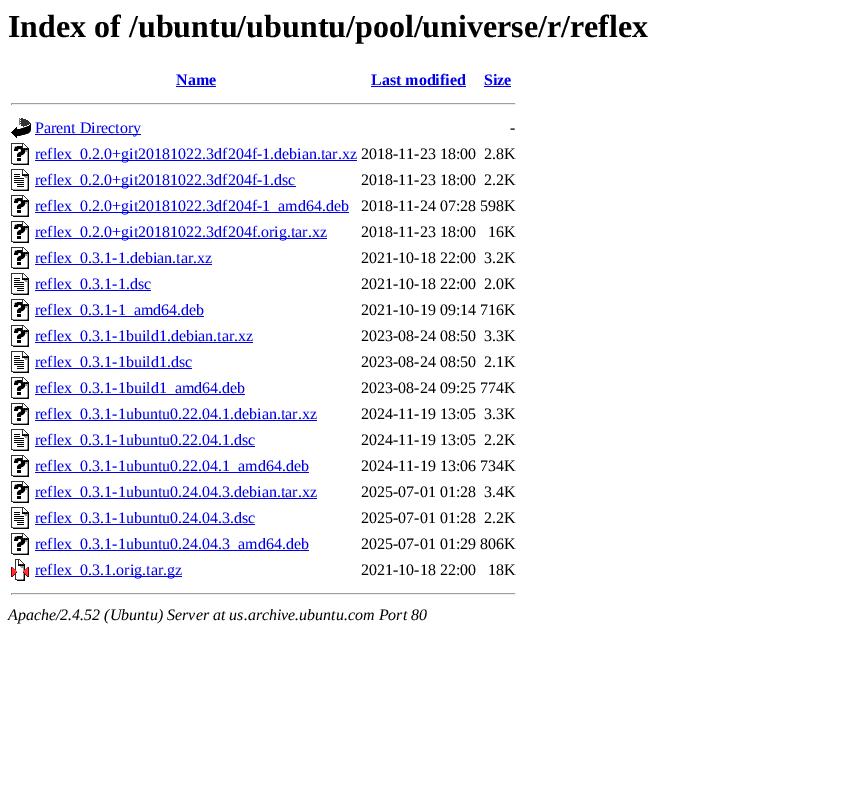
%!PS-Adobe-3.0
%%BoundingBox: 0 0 856 802
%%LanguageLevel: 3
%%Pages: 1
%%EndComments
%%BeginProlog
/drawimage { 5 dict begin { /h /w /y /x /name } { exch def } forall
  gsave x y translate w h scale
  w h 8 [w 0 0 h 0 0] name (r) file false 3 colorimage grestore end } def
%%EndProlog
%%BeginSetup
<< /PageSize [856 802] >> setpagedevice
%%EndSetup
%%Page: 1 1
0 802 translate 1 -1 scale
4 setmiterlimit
1 setgray
0 0 856 802 rectfill
0 0 0.933 setrgbcolor
176 86 40 1 rectfill
371 86 95 1 rectfill
484 86 27 1 rectfill
0.624 setgray
11 103 505 1 rectfill
0.933 setgray
515 103 1 2 rectfill
11 104 505 1 rectfill
0.624 setgray
11 103 1 2 rectfill
(images/1.raw) 11 118 20 20 drawimage
0 0 0.933 setrgbcolor
35 134 106 1 rectfill
(images/2.raw) 11 143 18 22 drawimage
35 160 322 1 rectfill
(images/3.raw) 11 169 18 22 drawimage
35 186 261 1 rectfill
(images/2.raw) 11 195 18 22 drawimage
35 212 314 1 rectfill
(images/2.raw) 11 221 18 22 drawimage
35 238 292 1 rectfill
(images/2.raw) 11 247 18 22 drawimage
35 264 177 1 rectfill
(images/3.raw) 11 273 18 22 drawimage
35 290 116 1 rectfill
(images/2.raw) 11 299 18 22 drawimage
35 316 169 1 rectfill
(images/2.raw) 11 325 18 22 drawimage
35 342 218 1 rectfill
(images/3.raw) 11 351 18 22 drawimage
35 368 157 1 rectfill
(images/2.raw) 11 377 18 22 drawimage
35 394 210 1 rectfill
(images/2.raw) 11 403 18 22 drawimage
35 420 282 1 rectfill
(images/3.raw) 11 429 18 22 drawimage
35 446 220 1 rectfill
(images/2.raw) 11 455 18 22 drawimage
35 472 274 1 rectfill
(images/2.raw) 11 481 18 22 drawimage
35 498 282 1 rectfill
(images/3.raw) 11 507 18 22 drawimage
35 524 220 1 rectfill
(images/2.raw) 11 533 18 22 drawimage
35 550 274 1 rectfill
(images/4.raw) 11 559 18 22 drawimage
35 576 147 1 rectfill
0.624 setgray
11 593 505 1 rectfill
0.933 setgray
515 593 1 2 rectfill
11 594 505 1 rectfill
0.624 setgray
11 593 1 2 rectfill
/LiberationSerif-Bold [32 0 0 -32 0 0] selectfont
0 setgray
8 37 moveto (Index of /ubuntu/ubuntu/pool/universe/r/reflex) show
/LiberationSerif-Bold [16 0 0 -16 0 0] selectfont
0 0 0.933 setrgbcolor
176 85 moveto (Name) show
371 85 moveto (Last modified) show
484 85 moveto (Size) show
/LiberationSerif-Regular [16 0 0 -16 0 0] selectfont
35 133 moveto (Parent Directory) show
0 setgray
510 133 moveto (-) show
0 0 0.933 setrgbcolor
35 159 moveto (reflex_0.2.0+git20181022.3df204f-1.debian.tar.xz) show
0 setgray
361 159 moveto (2018-11-23 18:00) show
484 159 moveto (2.8K) show
0 0 0.933 setrgbcolor
35 185 moveto (reflex_0.2.0+git20181022.3df204f-1.dsc) show
0 setgray
361 185 moveto (2018-11-23 18:00) show
484 185 moveto (2.2K) show
0 0 0.933 setrgbcolor
35 211 moveto (reflex_0.2.0+git20181022.3df204f-1_amd64.deb) show
0 setgray
361 211 moveto (2018-11-24 07:28 598K) show
0 0 0.933 setrgbcolor
35 237 moveto (reflex_0.2.0+git20181022.3df204f.orig.tar.xz) show
0 setgray
361 237 moveto (2018-11-23 18:00) show
488 237 moveto (16K) show
0 0 0.933 setrgbcolor
35 263 moveto (reflex_0.3.1-1.debian.tar.xz) show
0 setgray
361 263 moveto (2021-10-18 22:00) show
484 263 moveto (3.2K) show
0 0 0.933 setrgbcolor
35 289 moveto (reflex_0.3.1-1.dsc) show
0 setgray
361 289 moveto (2021-10-18 22:00) show
484 289 moveto (2.0K) show
0 0 0.933 setrgbcolor
35 315 moveto (reflex_0.3.1-1_amd64.deb) show
0 setgray
361 315 moveto (2021-10-19 09:14 716K) show
0 0 0.933 setrgbcolor
35 341 moveto (reflex_0.3.1-1build1.debian.tar.xz) show
0 setgray
361 341 moveto (2023-08-24 08:50) show
484 341 moveto (3.3K) show
0 0 0.933 setrgbcolor
35 367 moveto (reflex_0.3.1-1build1.dsc) show
0 setgray
361 367 moveto (2023-08-24 08:50) show
484 367 moveto (2.1K) show
0 0 0.933 setrgbcolor
35 393 moveto (reflex_0.3.1-1build1_amd64.deb) show
0 setgray
361 393 moveto (2023-08-24 09:25 774K) show
0 0 0.933 setrgbcolor
35 419 moveto (reflex_0.3.1-1ubuntu0.22.04.1.debian.tar.xz) show
0 setgray
361 419 moveto (2024-11-19 13:05) show
484 419 moveto (3.3K) show
0 0 0.933 setrgbcolor
35 445 moveto (reflex_0.3.1-1ubuntu0.22.04.1.dsc) show
0 setgray
361 445 moveto (2024-11-19 13:05) show
484 445 moveto (2.2K) show
0 0 0.933 setrgbcolor
35 471 moveto (reflex_0.3.1-1ubuntu0.22.04.1_amd64.deb) show
0 setgray
361 471 moveto (2024-11-19 13:06 734K) show
0 0 0.933 setrgbcolor
35 497 moveto (reflex_0.3.1-1ubuntu0.24.04.3.debian.tar.xz) show
0 setgray
361 497 moveto (2025-07-01 01:28) show
484 497 moveto (3.4K) show
0 0 0.933 setrgbcolor
35 523 moveto (reflex_0.3.1-1ubuntu0.24.04.3.dsc) show
0 setgray
361 523 moveto (2025-07-01 01:28) show
484 523 moveto (2.2K) show
0 0 0.933 setrgbcolor
35 549 moveto (reflex_0.3.1-1ubuntu0.24.04.3_amd64.deb) show
0 setgray
361 549 moveto (2025-07-01 01:29 806K) show
0 0 0.933 setrgbcolor
35 575 moveto (reflex_0.3.1.orig.tar.gz) show
0 setgray
361 575 moveto (2021-10-18 22:00) show
488 575 moveto (18K) show
/LiberationSerif-Italic [16 0 0 -16 0 0] selectfont
8 620 moveto (Apache/2.4.52 \(Ubuntu\) Server at us.archive.ubuntu.com Port 80) show
showpage
%%EOF
